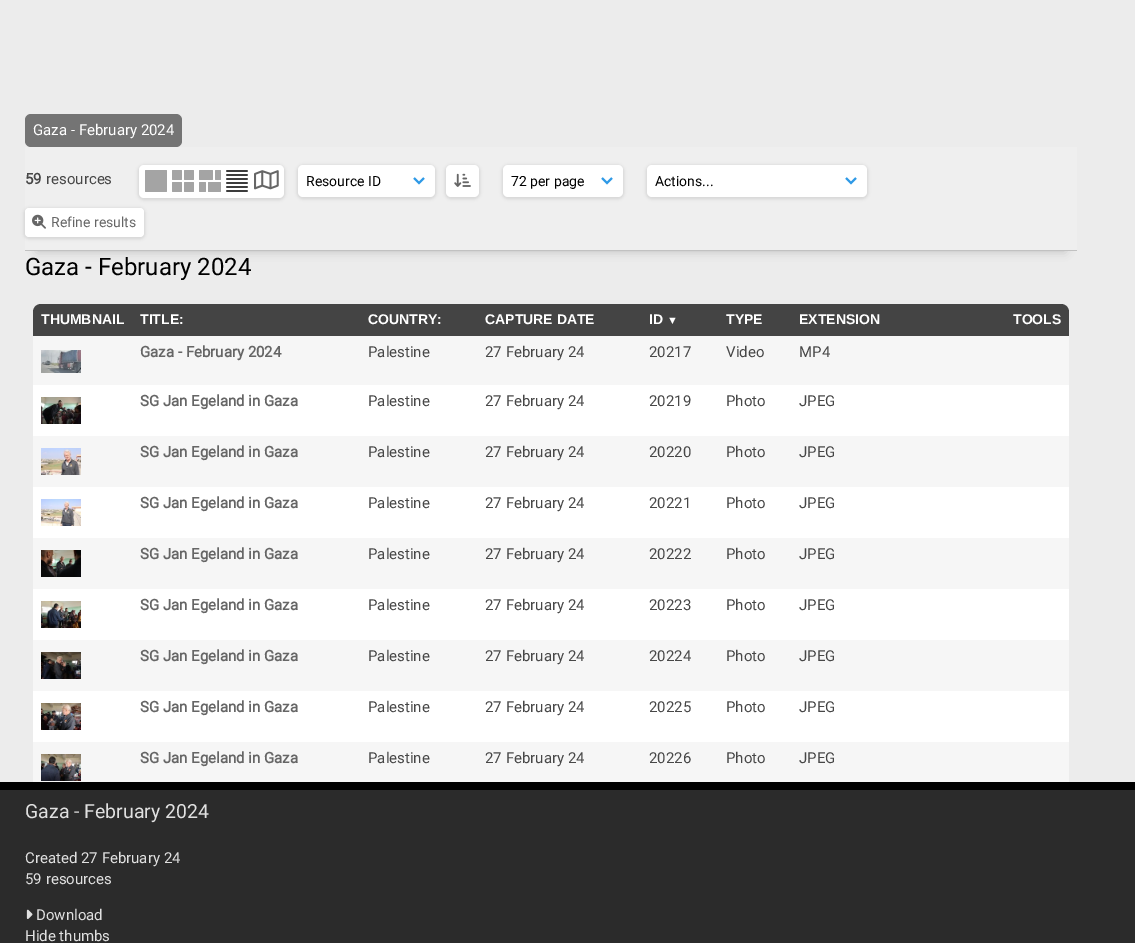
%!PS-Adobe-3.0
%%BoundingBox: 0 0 1135 943
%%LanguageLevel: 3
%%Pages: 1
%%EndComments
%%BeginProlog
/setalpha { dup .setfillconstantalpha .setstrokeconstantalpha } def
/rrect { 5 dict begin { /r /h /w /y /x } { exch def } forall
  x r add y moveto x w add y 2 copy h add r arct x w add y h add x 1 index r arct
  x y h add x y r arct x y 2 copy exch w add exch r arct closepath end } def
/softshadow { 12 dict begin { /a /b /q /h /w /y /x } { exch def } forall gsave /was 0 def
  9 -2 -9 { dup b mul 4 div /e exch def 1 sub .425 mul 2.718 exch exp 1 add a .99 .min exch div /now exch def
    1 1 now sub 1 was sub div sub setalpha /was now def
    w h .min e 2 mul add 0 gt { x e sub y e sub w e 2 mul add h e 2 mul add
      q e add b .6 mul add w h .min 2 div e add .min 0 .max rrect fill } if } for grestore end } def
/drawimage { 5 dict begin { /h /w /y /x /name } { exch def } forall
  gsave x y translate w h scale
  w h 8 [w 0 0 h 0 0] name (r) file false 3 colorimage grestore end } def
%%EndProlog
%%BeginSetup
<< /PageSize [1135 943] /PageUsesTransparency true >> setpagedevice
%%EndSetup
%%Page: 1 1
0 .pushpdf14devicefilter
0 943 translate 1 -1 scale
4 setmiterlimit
0.925 setgray
0 0 1135 943 rectfill
0.455 setgray
25 114 157 33 6 rrect fill
0.733 setgray
37 171 1028 80 0 5 1 softshadow
0.937 setgray
25 147 1052 103 rectfill
0.757 setgray
25 250 1052 1 rectfill
0 setgray
138 165 147 35 6 1.5 0.1 softshadow
1 setgray
139 165 145 33 5 rrect fill
0.643 setgray
145 170 22 22 1 rrect fill
184 170 10 10 1 rrect fill
172 182 10 10 1 rrect fill
184 182 10 10 1 rrect fill
172 170 10 10 1 rrect fill
199 170 14 10 1 rrect fill
215 170 6 10 1 rrect fill
208 182 13 10 1 rrect fill
199 182 7 10 1 rrect fill
(images/1.raw) 226 170 22 22 drawimage
(images/2.raw) 254 170 25 20 drawimage
0 setgray
297 165 139 34 6 1.5 0.1 softshadow
1 setgray
298 165 137 32 5 rrect fill
0.18 0.6 0.902 setrgbcolor
2 setlinewidth
newpath 424 178 moveto 419 183 lineto 414 178 lineto stroke
0 setgray
445 165 35 34 6 1.5 0.1 softshadow
1 setgray
446 165 33 32 5 rrect fill
(images/3.raw) 454 173 17 14 drawimage
0 setgray
502 165 122 34 6 1.5 0.1 softshadow
1 setgray
503 165 120 32 5 rrect fill
0.18 0.6 0.902 setrgbcolor
newpath 612 178 moveto 607 183 lineto 602 178 lineto stroke
0 setgray
646 165 222 34 6 1.5 0.1 softshadow
1 setgray
647 165 220 32 5 rrect fill
0.18 0.6 0.902 setrgbcolor
newpath 856 178 moveto 851 183 lineto 846 178 lineto stroke
0 setgray
24 208 121 31 5 1.5 0.1 softshadow
1 setgray
25 208 119 29 4 rrect fill
(images/4.raw) 32 214 14 15 drawimage
newpath 41 304 moveto 1061 304 lineto 1065.5 304 1069 307.5 1069 312 curveto 1069 782 lineto 33 782 lineto 33 312 lineto 33 307.5 36.5 304 41 304 curveto closepath fill
0.267 setgray
newpath 41 304 moveto 1061 304 lineto 1065.5 304 1069 307.5 1069 312 curveto 1069 336 lineto 33 336 lineto 33 312 lineto 33 307.5 36.5 304 41 304 curveto closepath fill
0.965 setgray
33 336 1036 49 rectfill
(images/5.raw) 41 350 40 23 drawimage
(images/6.raw) 41 397 40 27 drawimage
33 436 1036 51 rectfill
(images/7.raw) 41 448 40 27 drawimage
(images/8.raw) 41 499 40 27 drawimage
33 538 1036 51 rectfill
(images/9.raw) 41 550 40 27 drawimage
(images/10.raw) 41 601 40 27 drawimage
33 640 1036 51 rectfill
(images/11.raw) 41 652 40 27 drawimage
(images/12.raw) 41 703 40 27 drawimage
33 742 1036 40 rectfill
(images/13.raw) 41 754 40 27 drawimage
0 setgray
0 782 1135 8 rectfill
0.169 setgray
0 790 1135 153 rectfill
(images/14.raw) 26 909 7 10 drawimage
/Roboto-Regular [15 0 0 -15 0 0] selectfont
1 setgray
33 135 moveto (Gaza - February 2024) show
/Roboto-Bold [15 0 0 -15 0 0] selectfont
0.278 setgray
25 184 moveto (59) show
/Roboto-Regular [15 0 0 -15 0 0] selectfont
46 184 moveto (resources) show
/Roboto-Regular [14 0 0 -14 0 0] selectfont
0 setgray
306 186 moveto (Resource ID) show
511 186 moveto (72 per page) show
655 186 moveto (Actions...) show
0.4 setgray
51 227 moveto (Refine results) show
/Roboto-Regular [24 0 0 -24 0 0] selectfont
0 setgray
25 275 moveto (Gaza - February 2024) show
/LiberationSans-Bold [14 0 0 -14 0 0] selectfont
1 setgray
41 324 moveto (THUMBNAIL) show
140 324 moveto (TITLE:) show
368 324 moveto (COUNTRY:) show
485 324 moveto (CAPTURE DATE) show
649 324 moveto (ID) show
/LiberationSans-Bold [11 0 0 -11 0 0] selectfont
667 324 moveto (▼) show
/LiberationSans-Bold [14 0 0 -14 0 0] selectfont
726 324 moveto (TYPE) show
799 324 moveto (EXTENSION) show
1013 324 moveto (TOOLS) show
/Roboto-Bold [15 0 0 -15 0 0] selectfont
0.4 setgray
140 357 moveto (Gaza - February 2024) show
/Roboto-Regular [15 0 0 -15 0 0] selectfont
0.278 setgray
368 357 moveto (Palestine) show
485 357 moveto (27 February 24) show
649 357 moveto (20217) show
726 357 moveto (Video) show
799 357 moveto (MP4) show
/Roboto-Bold [15 0 0 -15 0 0] selectfont
0.4 setgray
140 406 moveto (SG Jan Egeland in Gaza) show
/Roboto-Regular [15 0 0 -15 0 0] selectfont
0.278 setgray
368 406 moveto (Palestine) show
485 406 moveto (27 February 24) show
649 406 moveto (20219) show
726 406 moveto (Photo) show
799 406 moveto (JPEG) show
/Roboto-Bold [15 0 0 -15 0 0] selectfont
0.4 setgray
140 457 moveto (SG Jan Egeland in Gaza) show
/Roboto-Regular [15 0 0 -15 0 0] selectfont
0.278 setgray
368 457 moveto (Palestine) show
485 457 moveto (27 February 24) show
649 457 moveto (20220) show
726 457 moveto (Photo) show
799 457 moveto (JPEG) show
/Roboto-Bold [15 0 0 -15 0 0] selectfont
0.4 setgray
140 508 moveto (SG Jan Egeland in Gaza) show
/Roboto-Regular [15 0 0 -15 0 0] selectfont
0.278 setgray
368 508 moveto (Palestine) show
485 508 moveto (27 February 24) show
649 508 moveto (20221) show
726 508 moveto (Photo) show
799 508 moveto (JPEG) show
/Roboto-Bold [15 0 0 -15 0 0] selectfont
0.4 setgray
140 559 moveto (SG Jan Egeland in Gaza) show
/Roboto-Regular [15 0 0 -15 0 0] selectfont
0.278 setgray
368 559 moveto (Palestine) show
485 559 moveto (27 February 24) show
649 559 moveto (20222) show
726 559 moveto (Photo) show
799 559 moveto (JPEG) show
/Roboto-Bold [15 0 0 -15 0 0] selectfont
0.4 setgray
140 610 moveto (SG Jan Egeland in Gaza) show
/Roboto-Regular [15 0 0 -15 0 0] selectfont
0.278 setgray
368 610 moveto (Palestine) show
485 610 moveto (27 February 24) show
649 610 moveto (20223) show
726 610 moveto (Photo) show
799 610 moveto (JPEG) show
/Roboto-Bold [15 0 0 -15 0 0] selectfont
0.4 setgray
140 661 moveto (SG Jan Egeland in Gaza) show
/Roboto-Regular [15 0 0 -15 0 0] selectfont
0.278 setgray
368 661 moveto (Palestine) show
485 661 moveto (27 February 24) show
649 661 moveto (20224) show
726 661 moveto (Photo) show
799 661 moveto (JPEG) show
/Roboto-Bold [15 0 0 -15 0 0] selectfont
0.4 setgray
140 712 moveto (SG Jan Egeland in Gaza) show
/Roboto-Regular [15 0 0 -15 0 0] selectfont
0.278 setgray
368 712 moveto (Palestine) show
485 712 moveto (27 February 24) show
649 712 moveto (20225) show
726 712 moveto (Photo) show
799 712 moveto (JPEG) show
/Roboto-Bold [15 0 0 -15 0 0] selectfont
0.4 setgray
140 763 moveto (SG Jan Egeland in Gaza) show
/Roboto-Regular [15 0 0 -15 0 0] selectfont
0.278 setgray
368 763 moveto (Palestine) show
485 763 moveto (27 February 24) show
649 763 moveto (20226) show
726 763 moveto (Photo) show
799 763 moveto (JPEG) show
/Roboto-Regular [19.5 0 0 -19.5 0 0] selectfont
0.878 setgray
25 818 moveto (Gaza - February 2024) show
/Roboto-Regular [15 0 0 -15 0 0] selectfont
25 863 moveto (Created 27 February 24) show
25 884 moveto (59 resources) show
36 920 moveto (Download) show
25 941 moveto (Hide thumbs) show
.poppdf14devicefilter showpage
%%EOF
